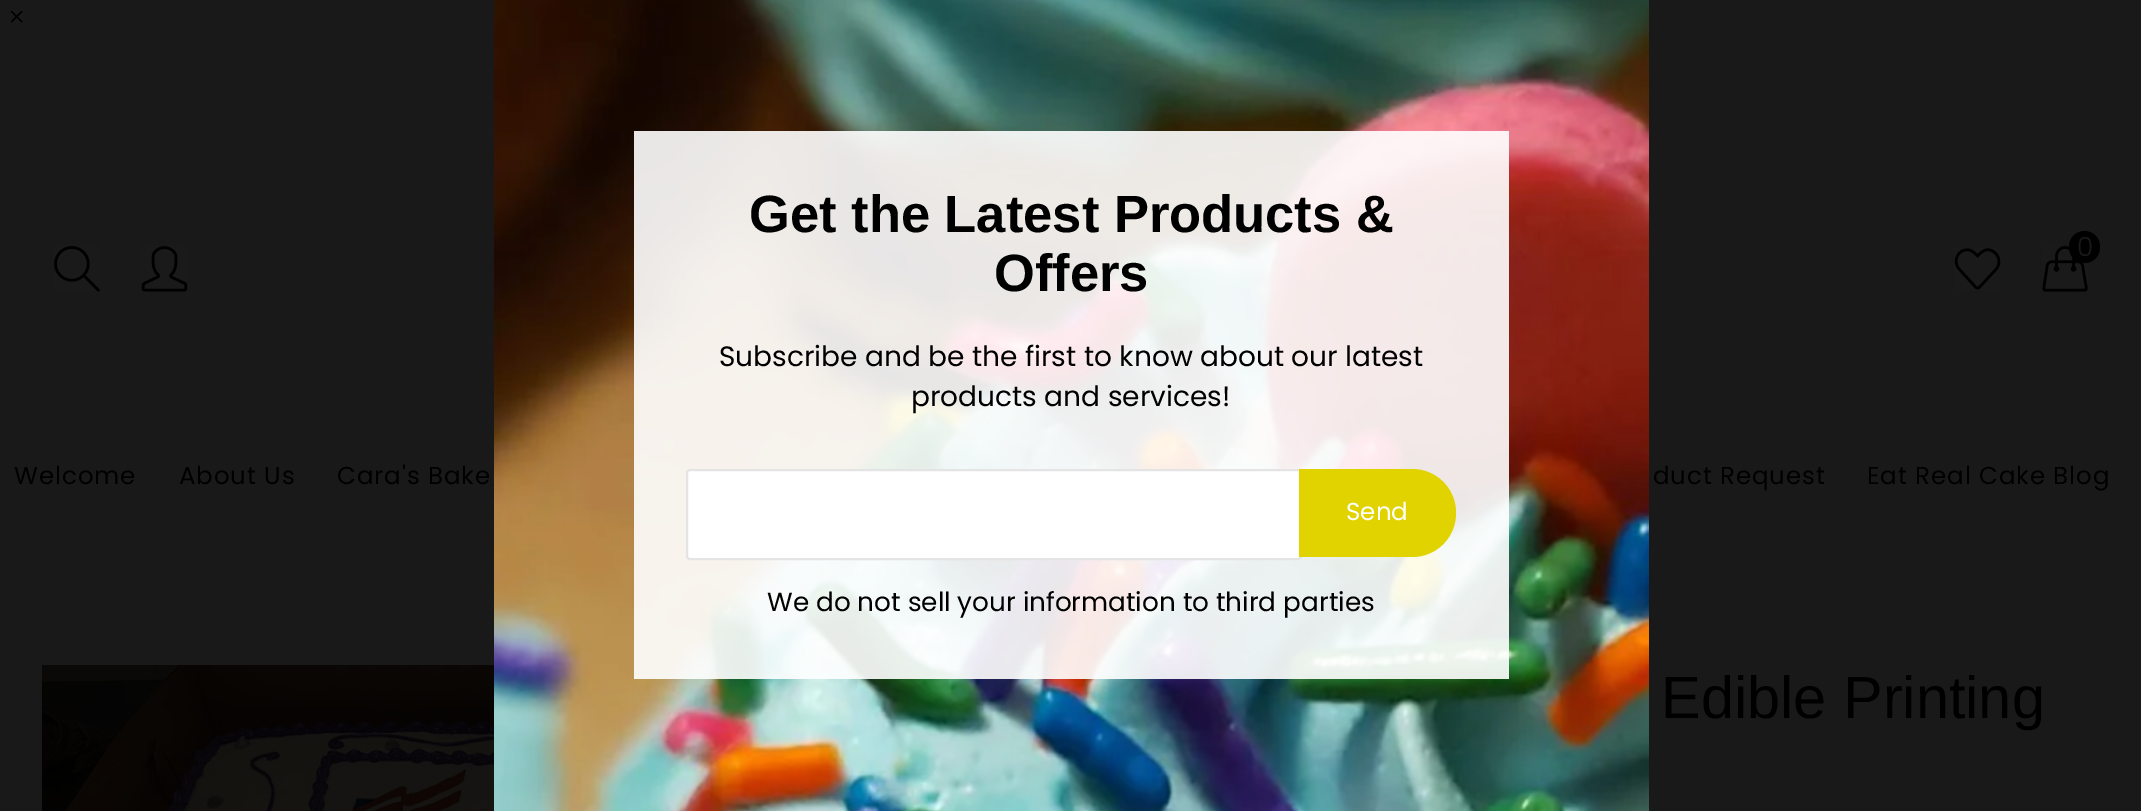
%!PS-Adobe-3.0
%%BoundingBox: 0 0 2141 811
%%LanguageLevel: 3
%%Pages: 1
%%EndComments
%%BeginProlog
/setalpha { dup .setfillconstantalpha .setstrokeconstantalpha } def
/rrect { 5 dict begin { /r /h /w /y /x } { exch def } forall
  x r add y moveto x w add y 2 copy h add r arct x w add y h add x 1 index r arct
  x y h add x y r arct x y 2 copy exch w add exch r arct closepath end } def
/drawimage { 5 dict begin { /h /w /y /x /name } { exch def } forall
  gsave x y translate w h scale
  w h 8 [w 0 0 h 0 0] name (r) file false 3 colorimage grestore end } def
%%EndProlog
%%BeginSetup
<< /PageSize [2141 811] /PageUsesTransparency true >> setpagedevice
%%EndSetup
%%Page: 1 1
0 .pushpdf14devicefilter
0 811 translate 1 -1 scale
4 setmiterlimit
0.098 setgray
0 0 2141 811 rectfill
(images/1.raw) 494 0 1155 811 drawimage
0.9 setalpha
1 setgray
634 131 875 548 rectfill
1 setalpha
687 470 614 89 3 rrect gsave fill grestore
0.894 setgray
2 setlinewidth
stroke
0.878 0.827 0 setrgbcolor
newpath 1299 469 moveto 1412 469 lineto 1436.5 469 1456 488.5 1456 513 curveto 1456 537.5 1436.5 557 1412 557 curveto 1299 557 lineto closepath fill
(images/2.raw) 10 10 13 13 drawimage
(images/3.raw) 54 246 46 46 drawimage
(images/4.raw) 141 246 47 46 drawimage
(images/5.raw) 1954 248 47 42 drawimage
(images/6.raw) 2042 246 46 46 drawimage
0 setgray
2069 231 31 32 15.5 rrect fill
(images/7.raw) 42 665 452 146 drawimage
/LiberationSans-Bold [52.5 0 0 -52.5 0 0] selectfont
749 232 moveto (Get the Latest Products &) show
994 291 moveto (Offers) show
/Poppins-Regular [28 0 0 -28 0 0] selectfont
719 366 moveto (Subscribe and be the first to know about our latest) show
911 406 moveto (products and services!) show
/Poppins-Regular [24.5 0 0 -24.5 0 0] selectfont
1 setgray
1346 520 moveto (Send) show
/Poppins-Regular [26.25 0 0 -26.25 0 0] selectfont
0 setgray
767 611 moveto (We do not sell your information to third parties) show
/Poppins-Light [26.25 0 0 -26.25 0 0] selectfont
0.098 setgray
2077 256 moveto (0) show
/Poppins-Regular [24.5 0 0 -24.5 0 0] selectfont
0 setgray
14 484 moveto 0.9 0 (Welcome) ashow
179 484 moveto 0.9 0 (About Us) ashow
337 484 moveto 0.9 0 (Cara's Bake) ashow
1653 484 moveto 0.9 0 (duct Request) ashow
1867 484 moveto 0.9 0 (Eat Real Cake Blog) ashow
/LiberationSans-Regular [59.5 0 0 -59.5 0 0] selectfont
1661 718 moveto (Edible Printing) show
.poppdf14devicefilter showpage
%%EOF
